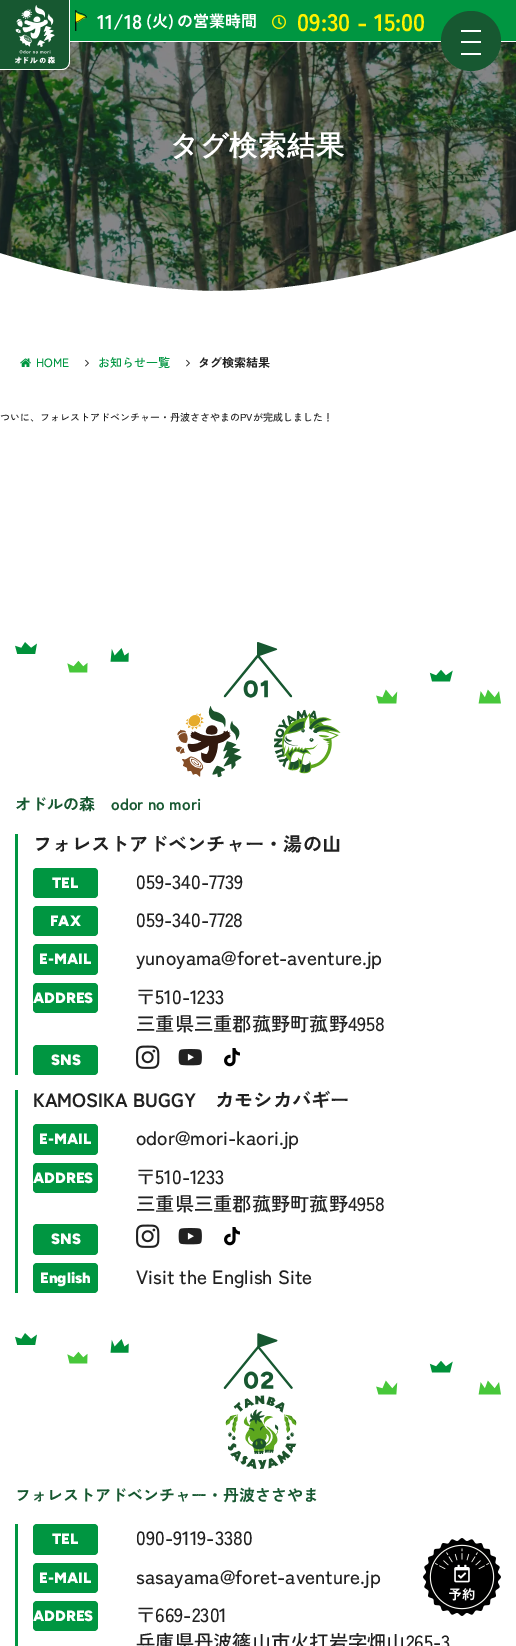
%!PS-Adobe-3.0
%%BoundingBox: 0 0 516 1646
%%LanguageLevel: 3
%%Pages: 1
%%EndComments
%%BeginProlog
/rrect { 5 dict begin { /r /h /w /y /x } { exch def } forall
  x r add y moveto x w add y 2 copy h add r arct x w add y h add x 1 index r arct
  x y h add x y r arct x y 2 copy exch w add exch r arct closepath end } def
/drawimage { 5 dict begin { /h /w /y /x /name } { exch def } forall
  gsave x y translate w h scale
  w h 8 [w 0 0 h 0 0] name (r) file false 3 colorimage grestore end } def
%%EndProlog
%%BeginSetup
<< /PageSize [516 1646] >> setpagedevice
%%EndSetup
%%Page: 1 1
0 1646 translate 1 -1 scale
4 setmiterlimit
1 setgray
0 0 516 1646 rectfill
(images/4.raw) 0 42 516 249 drawimage
0.09 0.345 0.192 setrgbcolor
newpath 0 0 moveto 69 0 lineto 69 62 lineto 69 66 66 69 62 69 curveto 0 69 lineto closepath fill
1 setgray
newpath 0 0 moveto 70 0 lineto 70 62 lineto 70 66 66 70 62 70 curveto 0 70 lineto closepath 0 0 moveto 69 0 lineto 69 62 lineto 69 66 66 69 62 69 curveto 0 69 lineto closepath eofill
(images/1.raw) 15 5 40 59 drawimage
0 0.588 0.255 setrgbcolor
70 0 446 41 rectfill
(images/2.raw) 75 10 12 21 drawimage
(images/3.raw) 272 15 14 14 drawimage
0.09 0.345 0.192 setrgbcolor
newpath 471 41 30 0 360 arc closepath fill
1 setgray
461 30 20 2 rectfill
461 41 20 2 rectfill
461 53 20 2 rectfill
gsave
0 0 516 345 rectclip
newpath 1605 467 moveto -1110 325 lineto -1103 183 lineto -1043 199 -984 216 -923 224 curveto -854 234 -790 232 -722 216 curveto -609 190 -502 130 -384 136 curveto -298 141 -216 174 -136 205 curveto -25 248 90 288 210 291 curveto 240 291 266 290 295 286 curveto 415 271 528 226 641 186 curveto 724 157 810 129 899 125 curveto 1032 119 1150 181 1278 202 curveto 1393 220 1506 202 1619 184 curveto closepath fill
grestore
(images/5.raw) 20 358 11 9 drawimage
(images/6.raw) 85 359 4 8 drawimage
(images/6.raw) 186 359 4 8 drawimage
(images/7.raw) 15 642 486 136 drawimage
0 0.588 0.255 setrgbcolor
15 834 3 241 rectfill
33 868 65 30 4 rrect fill
33 906 65 30 4 rrect fill
33 944 65 31 4 rrect fill
33 983 65 30 4 rrect fill
33 1045 65 30 4 rrect fill
(images/8.raw) 136 1045 24 24 drawimage
(images/9.raw) 178 1049 24 17 drawimage
(images/10.raw) 224 1048 16 19 drawimage
15 1090 3 203 rectfill
33 1124 65 31 4 rrect fill
33 1163 65 30 4 rrect fill
33 1224 65 31 4 rrect fill
(images/8.raw) 136 1224 24 24 drawimage
(images/9.raw) 178 1228 24 17 drawimage
(images/10.raw) 224 1227 16 19 drawimage
33 1263 65 30 4 rrect fill
(images/11.raw) 15 1333 486 136 drawimage
15 1524 3 122 rectfill
33 1524 65 31 4 rrect fill
33 1563 65 30 4 rrect fill
33 1601 65 30 4 rrect fill
(images/12.raw) 423 1538 78 78 drawimage
/ZenKakuGothicNew-Bold [20 0 0 -20 0 0] selectfont
1 setgray
97 29 moveto (11/18) show
/ZenKakuGothicNew-Bold [16 0 0 -16 0 0] selectfont
146 27 moveto (\(火\)) show
177 27 moveto (の営業時間) show
/ZenKakuGothicNew-Bold [24 0 0 -24 0 0] selectfont
1 0.945 0 setrgbcolor
297 31 moveto (09:30 - 15:00) show
/WenQuanYiZenHei-Bold [28 0 0 -28 0 0] selectfont
1 setgray
170 155 moveto 1 0 (タグ検索結果) ashow
/ZenKakuGothicNew-Medium [12 0 0 -12 0 0] selectfont
0 0.588 0.255 setrgbcolor
36 367 moveto (HOME) show
98 367 moveto (お知らせ一覧) show
/ZenKakuGothicNew-Bold [12 0 0 -12 0 0] selectfont
0.129 setgray
198 367 moveto (タグ検索結果) show
/ZenKakuGothicNew-Medium [10 0 0 -10 0 0] selectfont
0 421 moveto (ついに、フォレストアドベンチャー・丹波ささやまのPVが完成しました！) show
/ZenKakuGothicNew-Bold [16 0 0 -16 0 0] selectfont
0.09 0.345 0.192 setrgbcolor
15 810 moveto (オドルの森　odor no mori) show
/ZenKakuGothicNew-Bold [19.25 0 0 -19.25 0 0] selectfont
0.129 setgray
33 851 moveto (フォレストアドベンチャー・湯の山) show
/Figtree-Black [15 0 0 -15 0 0] selectfont
1 setgray
52 888 moveto (TEL) show
/ZenKakuGothicNew-Medium [19.25 0 0 -19.25 0 0] selectfont
0.129 setgray
136 889 moveto (059-340-7739) show
/Figtree-Black [15 0 0 -15 0 0] selectfont
1 setgray
50 926 moveto (FAX) show
/ZenKakuGothicNew-Medium [19.25 0 0 -19.25 0 0] selectfont
0.129 setgray
136 927 moveto (059-340-7728) show
/Figtree-Black [15 0 0 -15 0 0] selectfont
1 setgray
39 964 moveto (E-MAIL) show
/ZenKakuGothicNew-Medium [19.25 0 0 -19.25 0 0] selectfont
0.129 setgray
136 965 moveto (yunoyama@foret-aventure.jp) show
/Figtree-Black [15 0 0 -15 0 0] selectfont
1 setgray
33 1003 moveto (ADDRES) show
/ZenKakuGothicNew-Medium [19.25 0 0 -19.25 0 0] selectfont
0.129 setgray
136 1004 moveto (〒510-1233) show
136 1031 moveto (三重県三重郡菰野町菰野4958) show
/Figtree-Black [15 0 0 -15 0 0] selectfont
1 setgray
51 1065 moveto (SNS) show
/ZenKakuGothicNew-Bold [19.25 0 0 -19.25 0 0] selectfont
0.129 setgray
33 1107 moveto (KAMOSIKA BUGGY　カモシカバギー) show
/Figtree-Black [15 0 0 -15 0 0] selectfont
1 setgray
39 1144 moveto (E-MAIL) show
/ZenKakuGothicNew-Medium [19.25 0 0 -19.25 0 0] selectfont
0.129 setgray
136 1145 moveto (odor@mori-kaori.jp) show
/Figtree-Black [15 0 0 -15 0 0] selectfont
1 setgray
33 1183 moveto (ADDRES) show
/ZenKakuGothicNew-Medium [19.25 0 0 -19.25 0 0] selectfont
0.129 setgray
136 1184 moveto (〒510-1233) show
136 1211 moveto (三重県三重郡菰野町菰野4958) show
/Figtree-Black [15 0 0 -15 0 0] selectfont
1 setgray
51 1244 moveto (SNS) show
40 1283 moveto (English) show
/ZenKakuGothicNew-Medium [19.25 0 0 -19.25 0 0] selectfont
0.129 setgray
136 1284 moveto (Visit the English Site) show
/ZenKakuGothicNew-Bold [16 0 0 -16 0 0] selectfont
0.09 0.345 0.192 setrgbcolor
15 1501 moveto (フォレストアドベンチャー・丹波ささやま) show
/Figtree-Black [15 0 0 -15 0 0] selectfont
1 setgray
52 1544 moveto (TEL) show
/ZenKakuGothicNew-Medium [19.25 0 0 -19.25 0 0] selectfont
0.129 setgray
136 1545 moveto (090-9119-3380) show
/Figtree-Black [15 0 0 -15 0 0] selectfont
1 setgray
39 1583 moveto (E-MAIL) show
/ZenKakuGothicNew-Medium [19.25 0 0 -19.25 0 0] selectfont
0.129 setgray
136 1584 moveto (sasayama@foret-aventure.jp) show
/Figtree-Black [15 0 0 -15 0 0] selectfont
1 setgray
33 1621 moveto (ADDRES) show
/ZenKakuGothicNew-Medium [19.25 0 0 -19.25 0 0] selectfont
0.129 setgray
136 1622 moveto (〒669-2301) show
136 1649 moveto (兵庫県丹波篠山市火打岩字畑山265-3) show
showpage
%%EOF
